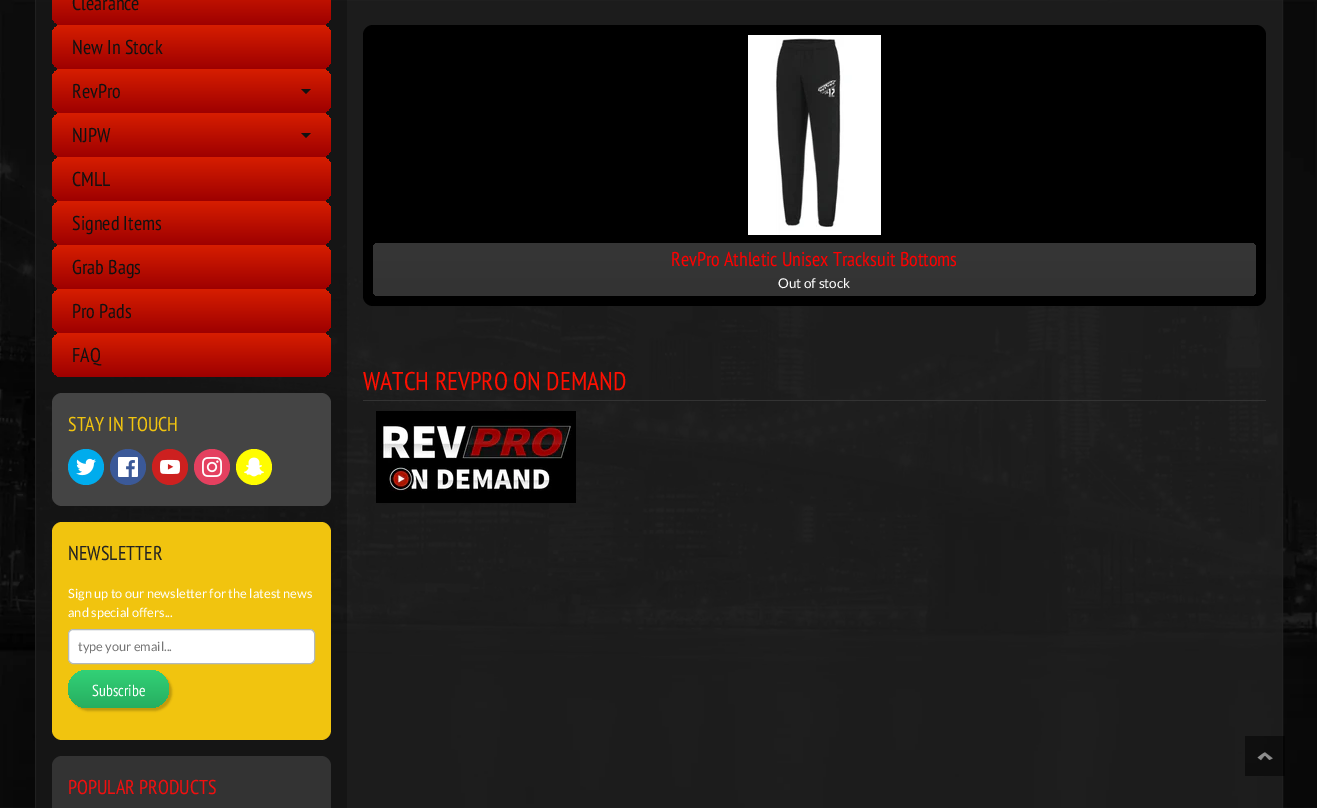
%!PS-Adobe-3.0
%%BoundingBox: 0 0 1317 808
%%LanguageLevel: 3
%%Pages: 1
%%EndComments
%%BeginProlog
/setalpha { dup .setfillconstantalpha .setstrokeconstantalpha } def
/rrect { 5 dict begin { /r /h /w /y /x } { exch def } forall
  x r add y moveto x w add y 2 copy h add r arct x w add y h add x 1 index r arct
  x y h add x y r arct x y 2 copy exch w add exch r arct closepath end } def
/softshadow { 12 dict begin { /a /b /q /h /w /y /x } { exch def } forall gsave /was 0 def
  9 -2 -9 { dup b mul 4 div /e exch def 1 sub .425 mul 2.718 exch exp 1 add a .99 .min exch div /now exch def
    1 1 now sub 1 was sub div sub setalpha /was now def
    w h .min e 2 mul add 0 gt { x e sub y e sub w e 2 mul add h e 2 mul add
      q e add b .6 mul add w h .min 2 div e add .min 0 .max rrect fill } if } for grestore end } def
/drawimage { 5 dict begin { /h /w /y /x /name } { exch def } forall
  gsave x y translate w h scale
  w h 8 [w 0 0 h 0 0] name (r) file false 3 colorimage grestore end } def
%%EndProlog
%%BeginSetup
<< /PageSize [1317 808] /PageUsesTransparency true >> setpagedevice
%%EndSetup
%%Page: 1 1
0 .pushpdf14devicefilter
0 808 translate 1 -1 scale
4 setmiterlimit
1 setgray
0 0 1317 808 rectfill
(images/1.raw) 0 0 1317 808 drawimage
0.7 setalpha
0.133 setgray
35.5 -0.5 1247 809 rectstroke
0.25 setalpha
0 setgray
36 0 311 808 rectfill
1 setalpha
gsave 52 -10 279 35 10 rrect clip newpath
<< /ShadingType 2 /ColorSpace /DeviceRGB /Coords [192 -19 192 25] /Extend [true true] /Function << /FunctionType 2 /Domain [0 1] /C0 [0.843 0.118 0] /C1 [0.62 0 0] /N 1 >> >> shfill grestore
gsave 52 25 279 44 10 rrect clip newpath
<< /ShadingType 2 /ColorSpace /DeviceRGB /Coords [192 25 192 69] /Extend [true true] /Function << /FunctionType 2 /Domain [0 1] /C0 [0.843 0.118 0] /C1 [0.62 0 0] /N 1 >> >> shfill grestore
gsave 52 69 279 44 10 rrect clip newpath
<< /ShadingType 2 /ColorSpace /DeviceRGB /Coords [192 69 192 113] /Extend [true true] /Function << /FunctionType 2 /Domain [0 1] /C0 [0.843 0.118 0] /C1 [0.62 0 0] /N 1 >> >> shfill grestore
0.067 setgray
newpath 301 89 moveto 311 89 lineto 306 94 lineto closepath fill
gsave 52 113 279 44 10 rrect clip newpath
<< /ShadingType 2 /ColorSpace /DeviceRGB /Coords [192 113 192 157] /Extend [true true] /Function << /FunctionType 2 /Domain [0 1] /C0 [0.843 0.118 0] /C1 [0.62 0 0] /N 1 >> >> shfill grestore
newpath 301 133 moveto 311 133 lineto 306 138 lineto closepath fill
gsave 52 157 279 44 10 rrect clip newpath
<< /ShadingType 2 /ColorSpace /DeviceRGB /Coords [192 157 192 201] /Extend [true true] /Function << /FunctionType 2 /Domain [0 1] /C0 [0.843 0.118 0] /C1 [0.62 0 0] /N 1 >> >> shfill grestore
gsave 52 201 279 44 10 rrect clip newpath
<< /ShadingType 2 /ColorSpace /DeviceRGB /Coords [192 201 192 245] /Extend [true true] /Function << /FunctionType 2 /Domain [0 1] /C0 [0.843 0.118 0] /C1 [0.62 0 0] /N 1 >> >> shfill grestore
gsave 52 245 279 44 10 rrect clip newpath
<< /ShadingType 2 /ColorSpace /DeviceRGB /Coords [192 245 192 289] /Extend [true true] /Function << /FunctionType 2 /Domain [0 1] /C0 [0.843 0.118 0] /C1 [0.62 0 0] /N 1 >> >> shfill grestore
gsave 52 289 279 44 10 rrect clip newpath
<< /ShadingType 2 /ColorSpace /DeviceRGB /Coords [192 289 192 333] /Extend [true true] /Function << /FunctionType 2 /Domain [0 1] /C0 [0.843 0.118 0] /C1 [0.62 0 0] /N 1 >> >> shfill grestore
gsave 52 333 279 44 10 rrect clip newpath
<< /ShadingType 2 /ColorSpace /DeviceRGB /Coords [192 333 192 377] /Extend [true true] /Function << /FunctionType 2 /Domain [0 1] /C0 [0.843 0.118 0] /C1 [0.62 0 0] /N 1 >> >> shfill grestore
0.267 setgray
52 393 279 113 10 rrect fill
0 0.675 0.929 setrgbcolor
newpath 86 467 18 0 360 arc closepath fill
(images/2.raw) 76 458 20 18 drawimage
0.231 0.349 0.596 setrgbcolor
newpath 128 467 18 0 360 arc closepath fill
(images/3.raw) 118 457 20 20 drawimage
0.804 0.125 0.122 setrgbcolor
newpath 170 467 18 0 360 arc closepath fill
(images/4.raw) 160 459 20 15 drawimage
0.894 0.251 0.373 setrgbcolor
newpath 212 467 18 0 360 arc closepath fill
(images/5.raw) 202 457 20 20 drawimage
1 0.988 0 setrgbcolor
newpath 254 467 18 0 360 arc closepath fill
(images/6.raw) 244 457 20 20 drawimage
0.945 0.769 0.059 setrgbcolor
52 522 279 218 10 rrect fill
1 setgray
68.5 629.5 246 34 4.5 rrect gsave fill grestore
0.698 0.725 0.741 setrgbcolor
stroke
0 setgray
71 673 101 38 19 1 0.2 softshadow
gsave 68 670 101 38 19 rrect clip newpath
<< /ShadingType 2 /ColorSpace /DeviceRGB /Coords [119 670 119 708] /Extend [true true] /Function << /FunctionType 2 /Domain [0 1] /C0 [0.196 0.82 0.467] /C1 [0.153 0.682 0.376] /N 1 >> >> shfill grestore
0.2 setgray
52 756 279 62 10 rrect fill
0 setgray
363 25 903 281 10 rrect fill
(images/7.raw) 748 35 133 200 drawimage
gsave 373 243 883 53 6 rrect clip newpath
<< /ShadingType 2 /ColorSpace /DeviceRGB /Coords [815 243 815 296] /Extend [true true] /Function << /FunctionType 2 /Domain [0 1] /C0 [0.212 0.212 0.212] /C1 [0.2 0.2 0.2] /N 1 >> >> shfill grestore
0.2 setgray
363 400 903 1 rectfill
(images/8.raw) 376 411 200 92 drawimage
(images/9.raw) 1245 736 40 40 drawimage
/PTSansNarrow-Regular [20 0 0 -20 0 0] selectfont
0.067 setgray
72 10 moveto (Clearance) show
72 54 moveto (New In Stock) show
72 98 moveto (RevPro) show
72 142 moveto (NJPW) show
72 186 moveto (CMLL) show
72 230 moveto (Signed Items) show
72 274 moveto (Grab Bags) show
72 318 moveto (Pro Pads) show
72 362 moveto (FAQ) show
0.945 0.769 0.059 setrgbcolor
68 431 moveto (STAY IN TOUCH) show
0.133 setgray
68 560 moveto (NEWSLETTER) show
/Lato-Regular [12.75 0 0 -12.75 0 0] selectfont
1 setgray
68 598 moveto (Sign up to our newsletter for the latest news) show
68 617 moveto (and special offers...) show
0.459 setgray
78 651 moveto (type your email...) show
/PTSansNarrow-Regular [16 0 0 -16 0 0] selectfont
1 setgray
92 696 moveto (Subscribe) show
/PTSansNarrow-Regular [20 0 0 -20 0 0] selectfont
0.945 0.059 0.059 setrgbcolor
68 794 moveto (POPULAR PRODUCTS) show
1 0 0 setrgbcolor
671 266 moveto (RevPro Athletic Unisex Tracksuit Bottoms) show
/Lato-Regular [13.5 0 0 -13.5 0 0] selectfont
1 setgray
778 288 moveto (Out of stock) show
/PTSansNarrow-Regular [25.6 0 0 -25.6 0 0] selectfont
1 0.059 0 setrgbcolor
363 390 moveto (WATCH REVPRO ON DEMAND) show
.poppdf14devicefilter showpage
%%EOF
